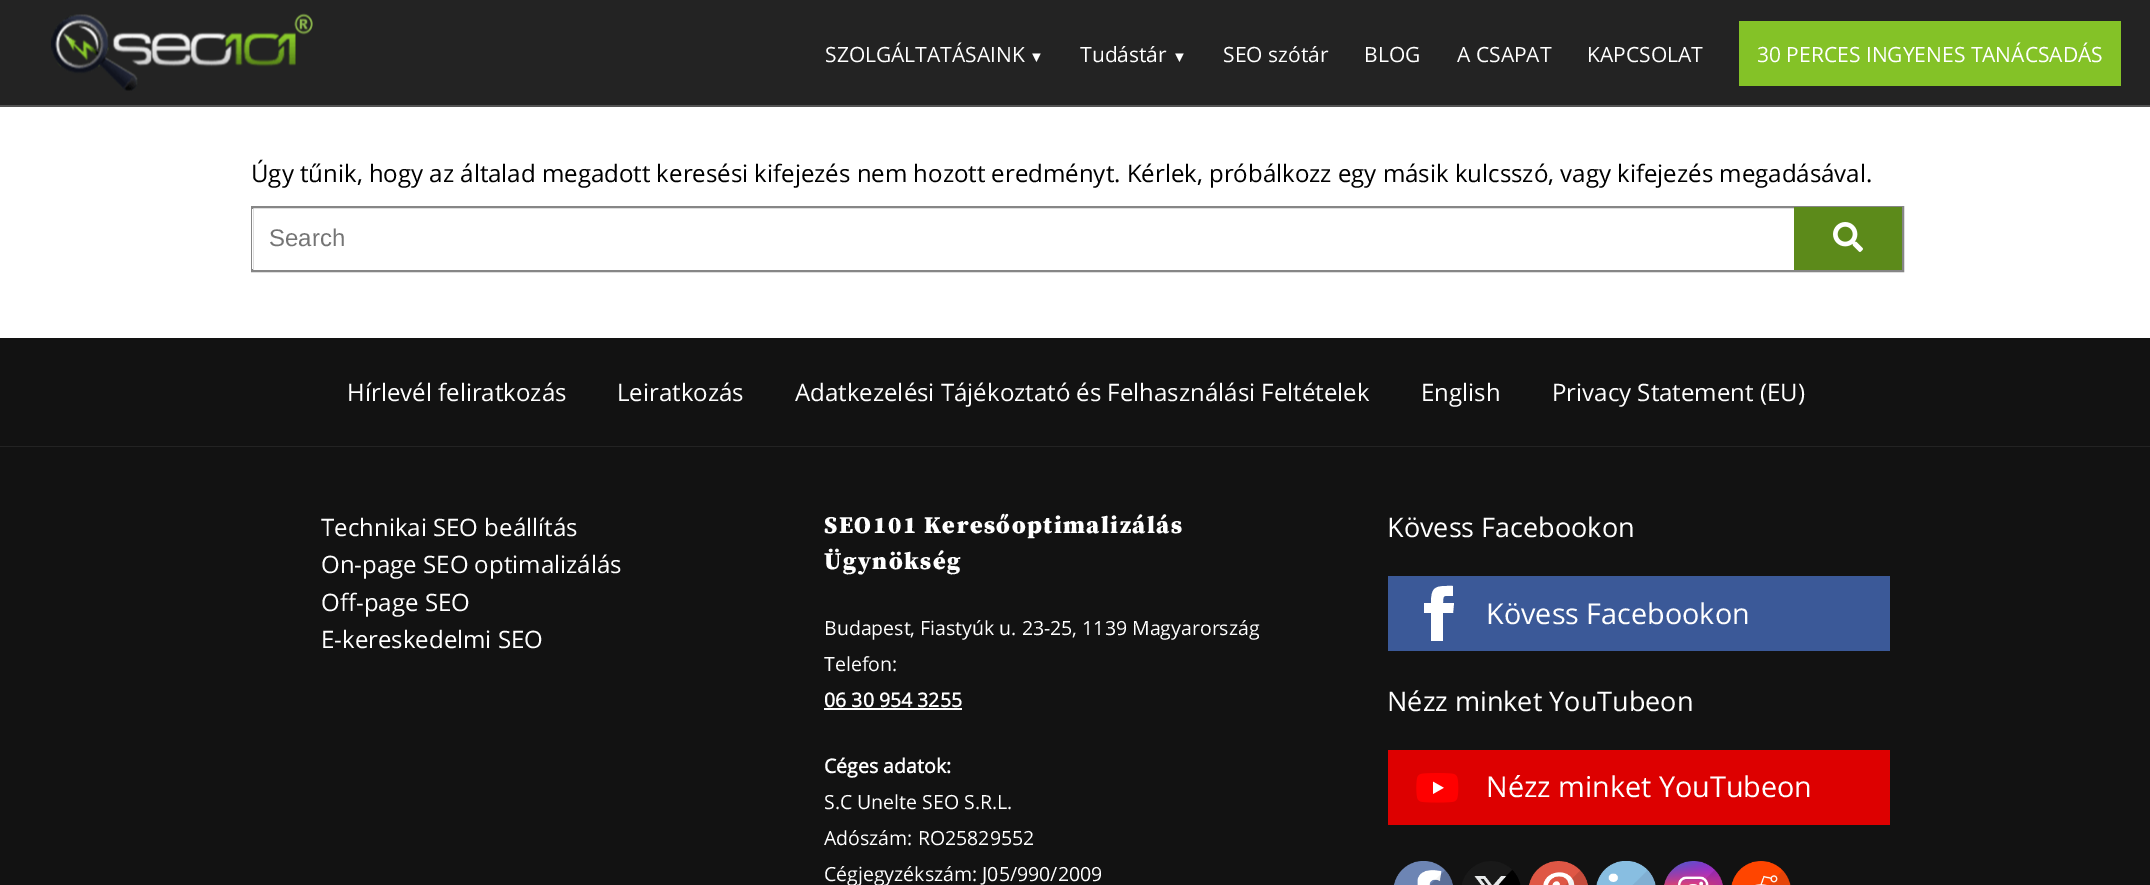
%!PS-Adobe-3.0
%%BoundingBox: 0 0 2150 885
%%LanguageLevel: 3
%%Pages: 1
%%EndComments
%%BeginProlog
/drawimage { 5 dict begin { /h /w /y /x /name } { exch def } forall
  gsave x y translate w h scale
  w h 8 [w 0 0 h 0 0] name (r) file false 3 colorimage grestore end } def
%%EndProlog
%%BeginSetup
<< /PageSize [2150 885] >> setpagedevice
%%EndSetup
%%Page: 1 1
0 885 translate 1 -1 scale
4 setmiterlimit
1 setgray
0 0 2150 885 rectfill
0.137 setgray
0 0 2150 105 rectfill
0.322 setgray
0 105 2150 2 rectfill
(images/1.raw) 51 13 262 78 drawimage
0.518 0.761 0.153 setrgbcolor
1739 21 382 65 rectfill
0.525 setgray
2 setlinewidth
252 207 1651 64 rectstroke
1 setgray
252 209 1 60 rectfill
0.361 0.541 0.102 setrgbcolor
1794 207 108 63 rectfill
(images/2.raw) 1833 222 30 30 drawimage
0.071 setgray
0 338 2150 108 rectfill
0.137 setgray
0 446 2150 1 rectfill
0.071 setgray
0 447 2150 438 rectfill
1 setgray
824 708 138 2 rectfill
0.231 0.349 0.596 setrgbcolor
1388 576 502 75 rectfill
1 setgray
newpath 1454 603 moveto 1443 603 lineto 1443 594 1444 596 1453 596 curveto 1453 586 lineto 1437 586 1431 585 1431 603 curveto 1424 603 lineto 1424 613 lineto 1431 613 lineto 1431 641 lineto 1443 641 lineto 1443 613 lineto 1453 613 lineto closepath fill
0.867 0 0 setrgbcolor
1388 750 502 75 rectfill
(images/3.raw) 1416 773 43 30 drawimage
(images/4.raw) 1393 861 60 24 drawimage
(images/5.raw) 1462 861 59 24 drawimage
(images/6.raw) 1529 861 59 24 drawimage
(images/7.raw) 1596 861 60 24 drawimage
(images/8.raw) 1664 861 59 24 drawimage
(images/9.raw) 1731 861 60 24 drawimage
/OpenSans-Regular [21 0 0 -21 0 0] selectfont
1 setgray
825 62 moveto (SZOLGÁLTATÁSAINK) show
/LiberationSerif-Regular [15 0 0 -15 0 0] selectfont
1029 62 moveto (▼) show
/OpenSans-Regular [21 0 0 -21 0 0] selectfont
1080 62 moveto (Tudástár) show
/LiberationSerif-Regular [15 0 0 -15 0 0] selectfont
1172 62 moveto (▼) show
/OpenSans-Regular [21 0 0 -21 0 0] selectfont
1223 62 moveto (SEO szótár) show
1364 62 moveto (BLOG) show
1457 62 moveto (A CSAPAT) show
1587 62 moveto (KAPCSOLAT) show
1757 62 moveto (30 PERCES INGYENES TANÁCSADÁS) show
/OpenSans-Regular [24 0 0 -24 0 0] selectfont
0 setgray
251 182 moveto (Úgy tűnik, hogy az általad megadott keresési kifejezés nem hozott eredményt. Kérlek, próbálkozz egy másik kulcsszó, vagy kifejezés megadásával.) show
/LiberationSans-Regular [24 0 0 -24 0 0] selectfont
0.459 setgray
269 246 moveto (Search) show
/OpenSans-Regular [24 0 0 -24 0 0] selectfont
1 setgray
347 401 moveto (Hírlevél feliratkozás) show
617 401 moveto (Leiratkozás) show
795 401 moveto (Adatkezelési Tájékoztató és Felhasználási Feltételek) show
1421 401 moveto (English) show
1552 401 moveto (Privacy Statement \(EU\)) show
321 536 moveto (Technikai SEO beállítás) show
321 573 moveto (On-page SEO optimalizálás) show
321 611 moveto (Off-page SEO) show
321 648 moveto (E-kereskedelmi SEO) show
/SourceSerifPro-Black [24 0 0 -24 0 0] selectfont
824 533 moveto 1.5 0 (SEO101 Keresőoptimalizálás) ashow
824 569 moveto 1.5 0 (Ügynökség) ashow
/OpenSans-Regular [19.5 0 0 -19.5 0 0] selectfont
824 635 moveto (Budapest, Fiastyúk u. 23-25, 1139 Magyarország) show
824 671 moveto (Telefon:) show
/OpenSans-Bold [19.5 0 0 -19.5 0 0] selectfont
824 707 moveto (06 30 954 3255) show
824 773 moveto (Céges adatok:) show
/OpenSans-Regular [19.5 0 0 -19.5 0 0] selectfont
824 809 moveto (S.C Unelte SEO S.R.L.) show
824 845 moveto (Adószám: RO25829552) show
824 881 moveto (Cégjegyzékszám: J05/990/2009) show
/OpenSans-Regular [27 0 0 -27 0 0] selectfont
1387 537 moveto (Kövess Facebookon) show
/OpenSans-Regular [28.75 0 0 -28.75 0 0] selectfont
1486 624 moveto (Kövess Facebookon) show
/OpenSans-Regular [27 0 0 -27 0 0] selectfont
1387 711 moveto (Nézz minket YouTubeon) show
/OpenSans-Regular [28.75 0 0 -28.75 0 0] selectfont
1486 797 moveto (Nézz minket YouTubeon) show
showpage
%%EOF
